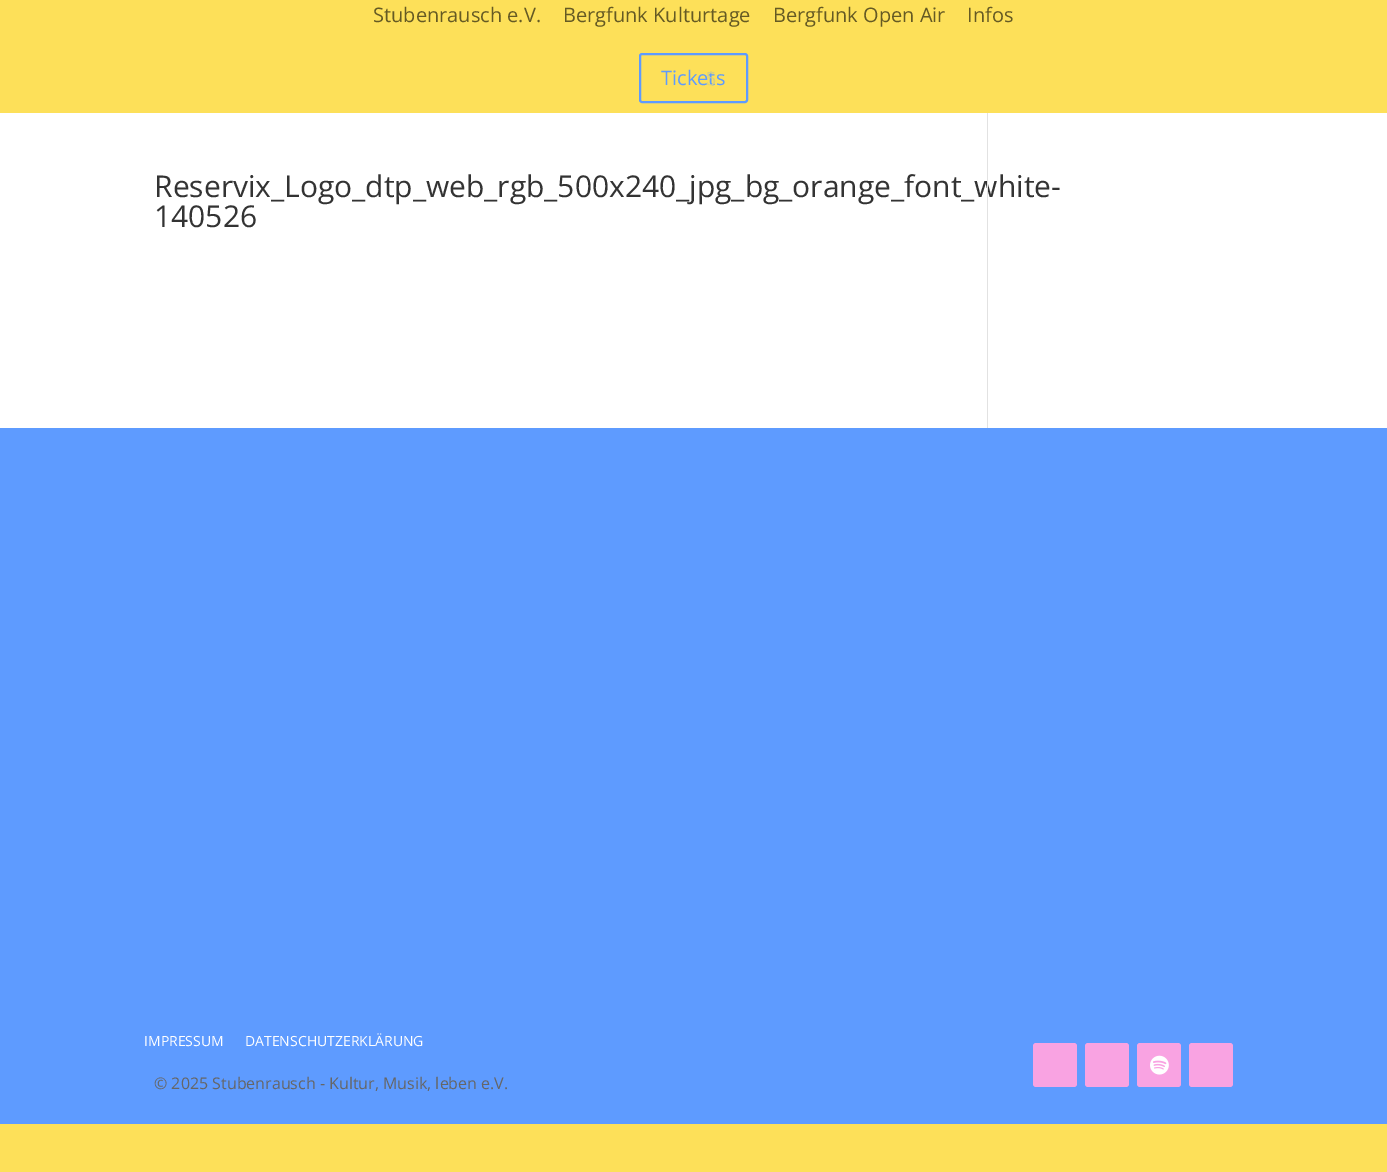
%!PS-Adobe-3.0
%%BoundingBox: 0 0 1387 1172
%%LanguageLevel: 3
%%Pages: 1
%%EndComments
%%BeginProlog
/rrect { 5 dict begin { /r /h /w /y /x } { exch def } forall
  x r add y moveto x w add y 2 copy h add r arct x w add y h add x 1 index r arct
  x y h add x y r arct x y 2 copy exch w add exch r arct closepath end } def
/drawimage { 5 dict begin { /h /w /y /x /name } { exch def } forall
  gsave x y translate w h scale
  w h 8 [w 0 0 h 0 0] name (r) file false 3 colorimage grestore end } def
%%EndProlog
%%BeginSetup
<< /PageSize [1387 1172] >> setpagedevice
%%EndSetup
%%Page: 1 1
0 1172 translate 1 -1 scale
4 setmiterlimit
0.992 0.878 0.349 setrgbcolor
0 0 1387 1172 rectfill
0.369 0.608 1 setrgbcolor
2 setlinewidth
640 54 107 48 2 rrect stroke
1 setgray
0 113 1387 315 rectfill
0.369 0.608 1 setrgbcolor
0 428 1387 696 rectfill
0.976 0.639 0.886 setrgbcolor
1033 1043 44 44 3 rrect fill
1085 1043 44 44 3 rrect fill
1137 1043 44 44 3 rrect fill
(images/1.raw) 1150 1055 19 20 drawimage
1189 1043 44 44 3 rrect fill
/OpenSans-Regular [20 0 0 -20 0 0] selectfont
0.396 0.353 0.141 setrgbcolor
373 22 moveto (Stubenrausch e.V.) show
563 22 moveto (Bergfunk Kulturtage) show
773 22 moveto (Bergfunk Open Air) show
967 22 moveto (Infos) show
0.369 0.608 1 setrgbcolor
661 85 moveto (Tickets) show
/LiberationSerif-Regular [20 0 0 -20 0 0] selectfont
0.851 0.816 0.498 setrgbcolor
706 85 moveto (5) show
/OpenSans-Regular [30 0 0 -30 0 0] selectfont
0.2 setgray
154 197 moveto (Reservix_Logo_dtp_web_rgb_500x240_jpg_bg_orange_font_white-) show
0.886 setgray
987 113 1 315 rectfill
0.2 setgray
154 227 moveto (140526) show
/OpenSans-Regular [14 0 0 -14 0 0] selectfont
1 setgray
144 1046 moveto (IMPRESSUM) show
245 1046 moveto (DATENSCHUTZERKLÄRUNG) show
/OpenSans-Regular [16 0 0 -16 0 0] selectfont
0.4 setgray
154 1089 moveto (© 2025 Stubenrausch - Kultur, Musik, leben e.V.) show
showpage
%%EOF
